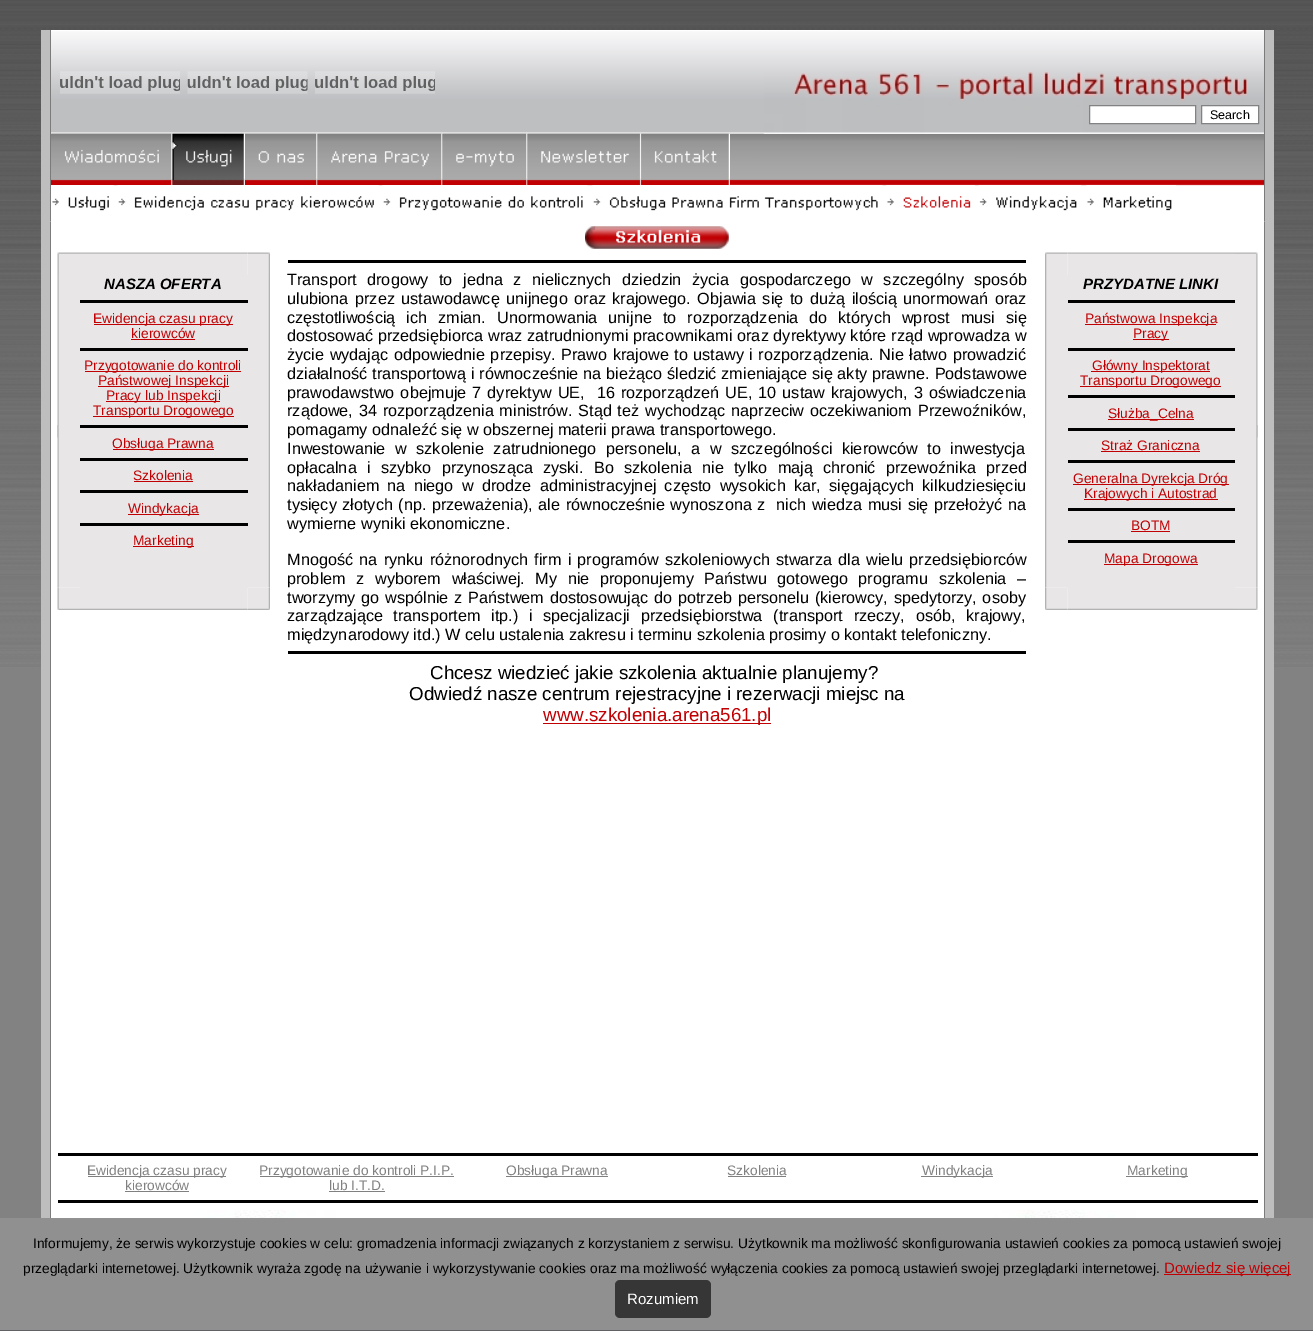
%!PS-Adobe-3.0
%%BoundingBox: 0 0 1313 1331
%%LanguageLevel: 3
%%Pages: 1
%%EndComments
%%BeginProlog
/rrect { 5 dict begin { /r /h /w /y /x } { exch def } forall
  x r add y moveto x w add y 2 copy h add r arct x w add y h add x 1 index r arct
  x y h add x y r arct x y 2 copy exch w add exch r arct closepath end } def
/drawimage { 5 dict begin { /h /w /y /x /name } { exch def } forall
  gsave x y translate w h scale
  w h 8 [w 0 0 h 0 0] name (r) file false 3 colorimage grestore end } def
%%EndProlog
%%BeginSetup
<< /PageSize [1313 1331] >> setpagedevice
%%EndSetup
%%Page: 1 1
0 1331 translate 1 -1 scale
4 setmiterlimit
0.51 setgray
0 0 1313 1331 rectfill
(images/1.raw) 0 0 1313 667 drawimage
0.745 setgray
1265 30 9 1188 rectfill
41 30 9 1188 rectfill
1 setgray
51 221 1213 997 rectfill
0.482 setgray
1264 221 1 997 rectfill
50 221 1 997 rectfill
(images/2.raw) 50 30 1215 192 drawimage
1264 30 1 191 rectfill
50 30 1 191 rectfill
(images/3.raw) 60 71 120 23 drawimage
(images/4.raw) 187 71 121 23 drawimage
(images/3.raw) 315 71 120 23 drawimage
(images/5.raw) 763 71 501 63 drawimage
1 setgray
newpath 1089.5 105.5 moveto 1195.5 105.5 lineto 1195.5 123.5 lineto 1089.5 123.5 lineto closepath gsave fill grestore
0.51 setgray
stroke
1 setgray
newpath 1201.5 105.5 moveto 1258.5 105.5 lineto 1258.5 123.5 lineto 1201.5 123.5 lineto closepath gsave fill grestore
0.51 setgray
stroke
(images/6.raw) 51 133 122 52 drawimage
(images/7.raw) 172 133 73 52 drawimage
(images/8.raw) 245 133 73 52 drawimage
(images/9.raw) 317 133 126 52 drawimage
(images/10.raw) 442 133 86 52 drawimage
(images/11.raw) 527 133 115 52 drawimage
(images/12.raw) 641 133 89 52 drawimage
(images/13.raw) 51 185 63 26 drawimage
(images/14.raw) 117 185 262 26 drawimage
(images/15.raw) 382 185 206 26 drawimage
(images/16.raw) 592 185 291 26 drawimage
(images/17.raw) 886 185 89 23 drawimage
(images/18.raw) 978 185 104 26 drawimage
(images/19.raw) 1086 185 91 26 drawimage
(images/20.raw) 585 226 144 23 drawimage
(images/21.raw) 57 252 23 23 drawimage
(images/22.raw) 80 252 168 23 drawimage
(images/23.raw) 247 252 23 23 drawimage
(images/24.raw) 57 275 23 313 drawimage
(images/25.raw) 57 425 1 13 drawimage
0.91 0.902 0.902 setrgbcolor
80 275 168 313 rectfill
0 setgray
80 300 168 3 rectfill
0.753 0 0.012 setrgbcolor
94 324 139 1 rectfill
131 339 64 1 rectfill
0 setgray
80 348 168 3 rectfill
0.753 0 0.012 setrgbcolor
85 371 156 1 rectfill
98 386 131 1 rectfill
106 401 114 1 rectfill
93 416 141 1 rectfill
0 setgray
80 425 168 3 rectfill
0.753 0 0.012 setrgbcolor
113 449 101 1 rectfill
0 setgray
80 458 168 3 rectfill
0.753 0 0.012 setrgbcolor
134 481 59 1 rectfill
0 setgray
80 490 168 3 rectfill
0.753 0 0.012 setrgbcolor
128 514 71 1 rectfill
0 setgray
80 523 168 3 rectfill
0.753 0 0.012 setrgbcolor
133 546 61 1 rectfill
(images/26.raw) 248 275 22 313 drawimage
(images/27.raw) 57 587 23 23 drawimage
(images/28.raw) 80 588 168 22 drawimage
(images/29.raw) 247 587 23 23 drawimage
0 setgray
288 260 738 3 rectfill
288 651 738 3 rectfill
0.753 0 0.012 setrgbcolor
543 723 228 1 rectfill
(images/31.raw) 1067 252 168 23 drawimage
(images/30.raw) 1045 252 23 23 drawimage
(images/32.raw) 1235 252 23 23 drawimage
(images/33.raw) 1045 275 22 313 drawimage
0.91 0.902 0.902 setrgbcolor
1067 275 168 313 rectfill
0 setgray
1068 300 167 3 rectfill
0.753 0 0.012 setrgbcolor
1085 324 131 1 rectfill
1133 339 36 1 rectfill
0 setgray
1068 348 167 3 rectfill
0.753 0 0.012 setrgbcolor
1091 371 119 1 rectfill
1080 386 141 1 rectfill
0 setgray
1068 395 167 3 rectfill
0.753 0 0.012 setrgbcolor
1108 419 86 1 rectfill
0 setgray
1068 428 167 3 rectfill
0.753 0 0.012 setrgbcolor
1101 451 99 1 rectfill
0 setgray
1068 460 167 3 rectfill
0.753 0 0.012 setrgbcolor
1073 484 156 1 rectfill
1084 499 134 1 rectfill
0 setgray
1068 508 167 3 rectfill
0.753 0 0.012 setrgbcolor
1131 531 39 1 rectfill
0 setgray
1068 540 167 3 rectfill
0.753 0 0.012 setrgbcolor
1104 564 94 1 rectfill
(images/34.raw) 1235 275 23 313 drawimage
(images/25.raw) 1257 425 1 13 drawimage
(images/36.raw) 1067 588 168 22 drawimage
(images/35.raw) 1045 587 23 23 drawimage
(images/37.raw) 1235 587 23 23 drawimage
0 setgray
58 1153 1200 3 rectfill
0.502 setgray
88 1176 138 1 rectfill
125 1191 64 1 rectfill
260 1176 194 1 rectfill
329 1191 56 1 rectfill
506 1176 102 1 rectfill
728 1176 58 1 rectfill
921 1176 72 1 rectfill
1126 1176 62 1 rectfill
0 setgray
58 1200 1200 3 rectfill
(images/38.raw) 185 1210 151 8 drawimage
(images/39.raw) 976 1210 160 8 drawimage
0.565 setgray
0 1218 1313 112 rectfill
0.38 0.376 0.4 setrgbcolor
0 1330 1313 1 rectfill
0.753 0 0.012 setrgbcolor
1164 1274 127 1 rectfill
0.212 setgray
615 1280 96 38 5 rrect fill
/LiberationSans-Regular [12.5 0 0 -12.5 0 0] selectfont
0 setgray
1210 119 moveto (Search) show
/LiberationSans-BoldItalic [15 0 0 -15 0 0] selectfont
104 289 moveto (NASZA OFERTA) show
/LiberationSans-Regular [13.75 0 0 -13.75 0 0] selectfont
0.753 0 0.012 setrgbcolor
93 323 moveto (Ewidencja czasu pracy) show
131 338 moveto (kierowców) show
84 370 moveto (Przygotowanie do kontroli) show
98 385 moveto (Państwowej Inspekcji) show
106 400 moveto (Pracy lub Inspekcji) show
93 415 moveto (Transportu Drogowego) show
112 448 moveto (Obsługa Prawna) show
133 480 moveto (Szkolenia) show
128 513 moveto (Windykacja) show
133 545 moveto (Marketing) show
/LiberationSans-Regular [16.25 0 0 -16.25 0 0] selectfont
0 setgray
287 285 moveto 6 0 32 (Transport drogowy to jedna z nielicznych dziedzin życia gospodarczego w szczególny sposób) widthshow
287 304 moveto 2 0 32 (ulubiona przez ustawodawcę unijnego oraz krajowego. Objawia się to dużą ilością unormowań oraz) widthshow
287 323 moveto 6.5 0 32 (częstotliwością ich zmian. Unormowania unijne to rozporządzenia do których wprost musi się) widthshow
287 341 moveto 0.25 0 32 (dostosować przedsiębiorca wraz zatrudnionymi pracownikami oraz dyrektywy które rząd wprowadza w) widthshow
287 360 moveto 1 0 32 (życie wydając odpowiednie przepisy. Prawo krajowe to ustawy i rozporządzenia. Nie łatwo prowadzić) widthshow
287 379 moveto 0.25 0 32 (działalność transportową i równocześnie na bieżąco śledzić zmieniające się akty prawne. Podstawowe) widthshow
287 398 moveto 1.5 0 32 (prawodawstwo obejmuje 7 dyrektyw UE,  16 rozporządzeń UE, 10 ustaw krajowych, 3 oświadczenia) widthshow
287 416 moveto 1.25 0 32 (rządowe, 34 rozporządzenia ministrów. Stąd też wychodząc naprzeciw oczekiwaniom Przewoźników,) widthshow
287 435 moveto (pomagamy odnaleźć się w obszernej materii prawa transportowego.) show
287 454 moveto 5 0 32 (Inwestowanie w szkolenie zatrudnionego personelu, a w szczególności kierowców to inwestycja) widthshow
287 473 moveto 5.75 0 32 (opłacalna i szybko przynosząca zyski. Bo szkolenia nie tylko mają chronić przewoźnika przed) widthshow
287 491 moveto 3.75 0 32 (nakładaniem na niego w drodze administracyjnej często wysokich kar, sięgających kilkudziesięciu) widthshow
287 510 moveto 1 0 32 (tysięcy złotych \(np. przeważenia\), ale równocześnie wynoszona z  nich wiedza musi się przełożyć na) widthshow
287 529 moveto (wymierne wyniki ekonomiczne.) show
287 565 moveto 1.75 0 32 (Mnogość na rynku różnorodnych firm i programów szkoleniowych stwarza dla wielu przedsiębiorców) widthshow
287 584 moveto 6.1 0 32 (problem z wyborem właściwej. My nie proponujemy Państwu gotowego programu szkolenia –) widthshow
287 603 moveto 1.25 0 32 (tworzymy go wspólnie z Państwem dostosowując do potrzeb personelu \(kierowcy, spedytorzy, osoby) widthshow
287 621 moveto 6.25 0 32 (zarządzające transportem itp.\) i specjalizacji przedsiębiorstwa \(transport rzeczy, osób, krajowy,) widthshow
287 640 moveto (międzynarodowy itd.\) W celu ustalenia zakresu i terminu szkolenia prosimy o kontakt telefoniczny.) show
/LiberationSans-Regular [18.75 0 0 -18.75 0 0] selectfont
430 679 moveto (Chcesz wiedzieć jakie szkolenia aktualnie planujemy?) show
409 700 moveto (Odwiedź nasze centrum rejestracyjne i rezerwacji miejsc na) show
0.753 0 0.012 setrgbcolor
543 721 moveto (www.szkolenia.arena561.pl) show
/LiberationSans-BoldItalic [15 0 0 -15 0 0] selectfont
0 setgray
1083 289 moveto (PRZYDATNE LINKI) show
/LiberationSans-Regular [13.75 0 0 -13.75 0 0] selectfont
0.753 0 0.012 setrgbcolor
1085 323 moveto (Państwowa Inspekcja) show
1133 338 moveto (Pracy) show
1092 370 moveto (Główny Inspektorat) show
1080 385 moveto (Transportu Drogowego) show
1108 418 moveto (Służba_Celna) show
1101 450 moveto (Straż Graniczna) show
1073 483 moveto (Generalna Dyrekcja Dróg) show
1084 498 moveto (Krajowych i Autostrad) show
1131 530 moveto (BOTM) show
1104 563 moveto (Mapa Drogowa) show
0.502 setgray
87 1175 moveto (Ewidencja czasu pracy) show
125 1190 moveto (kierowców) show
259 1175 moveto (Przygotowanie do kontroli P.I.P.) show
329 1190 moveto (lub I.T.D.) show
506 1175 moveto (Obsługa Prawna) show
727 1175 moveto (Szkolenia) show
922 1175 moveto (Windykacja) show
1127 1175 moveto (Marketing) show
0 setgray
33 1248 moveto (Informujemy, że serwis wykorzystuje cookies w celu: gromadzenia informacji związanych z korzystaniem z serwisu. Użytkownik ma możliwość skonfigurowania ustawień cookies za pomocą ustawień swojej) show
23 1273 moveto (przeglądarki internetowej. Użytkownik wyraża zgodę na używanie i wykorzystywanie cookies oraz ma możliwość wyłączenia cookies za pomocą ustawień swojej przeglądarki internetowej.) show
/LiberationSans-Regular [15 0 0 -15 0 0] selectfont
0.753 0 0.012 setrgbcolor
1164 1273 moveto (Dowiedz się więcej) show
1 setgray
627 1304 moveto (Rozumiem) show
showpage
%%EOF
